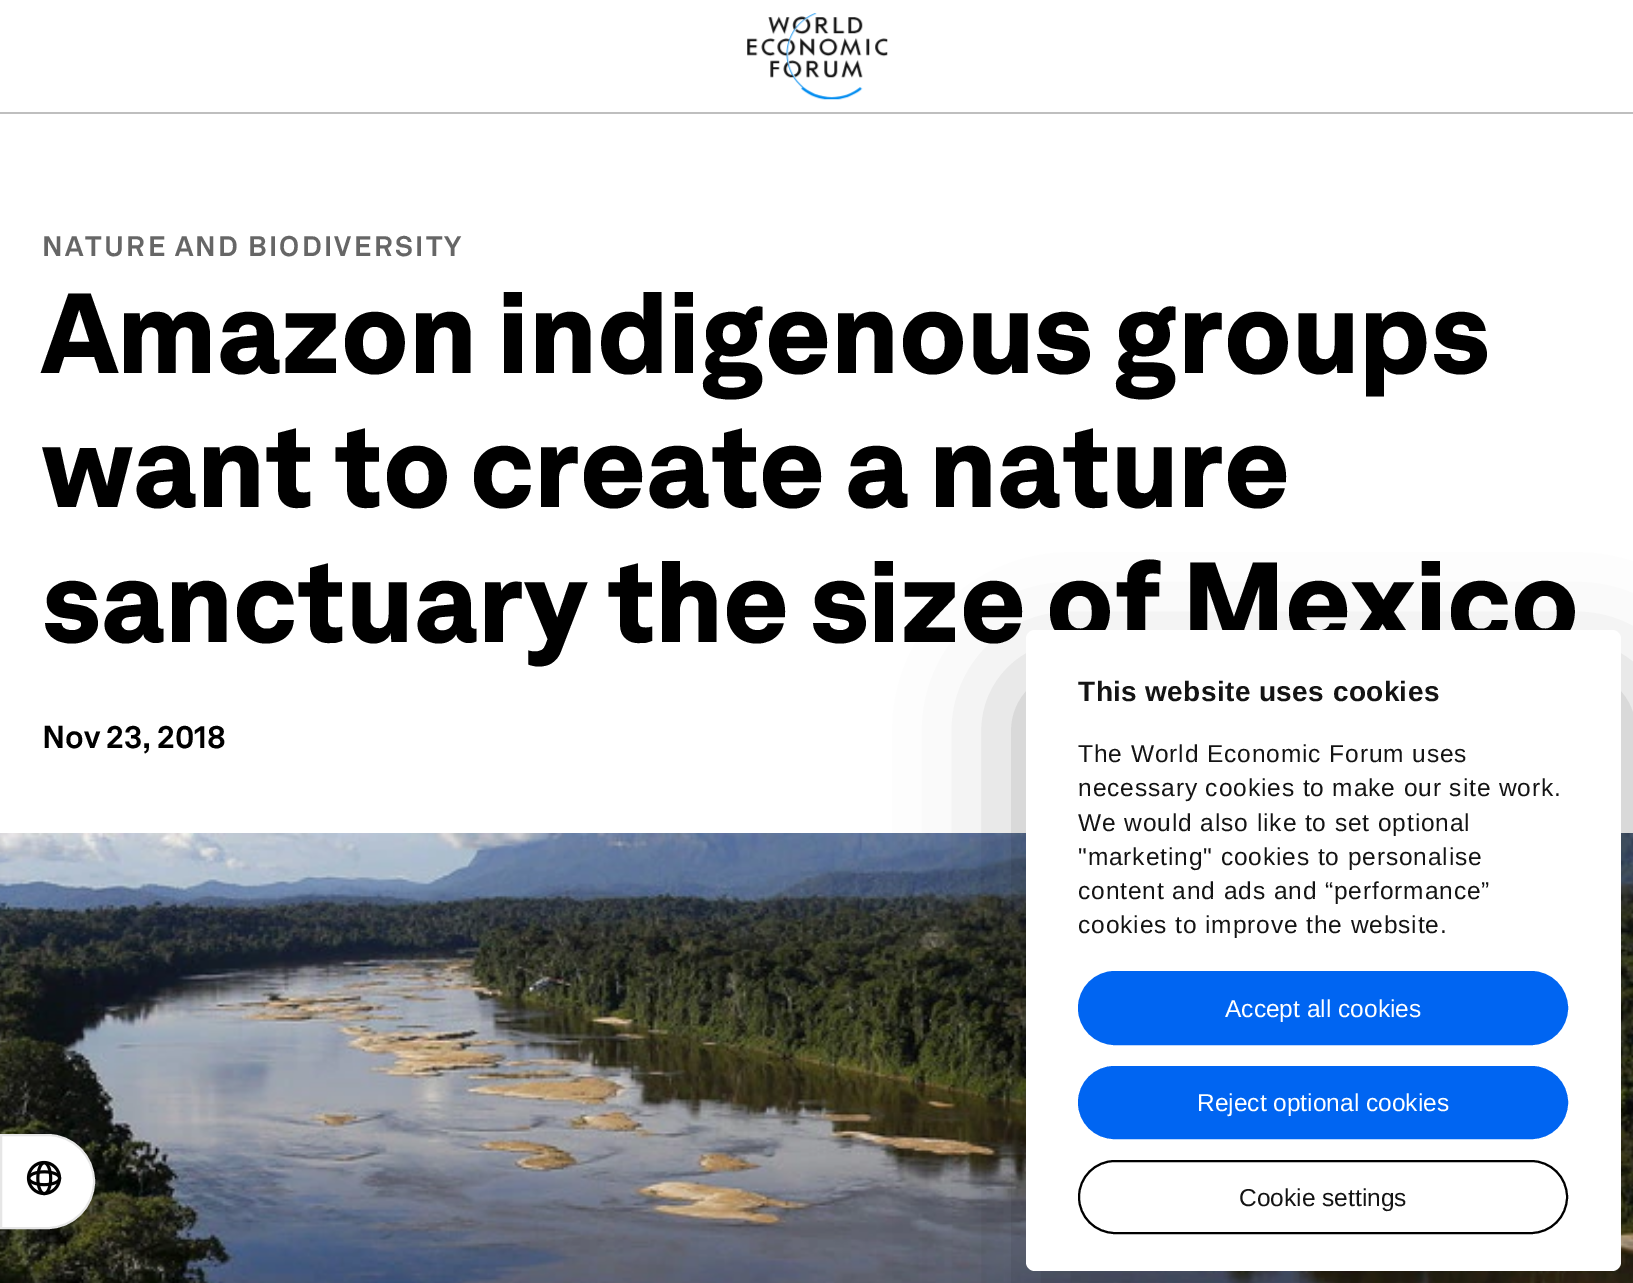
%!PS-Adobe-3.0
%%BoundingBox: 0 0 1633 1283
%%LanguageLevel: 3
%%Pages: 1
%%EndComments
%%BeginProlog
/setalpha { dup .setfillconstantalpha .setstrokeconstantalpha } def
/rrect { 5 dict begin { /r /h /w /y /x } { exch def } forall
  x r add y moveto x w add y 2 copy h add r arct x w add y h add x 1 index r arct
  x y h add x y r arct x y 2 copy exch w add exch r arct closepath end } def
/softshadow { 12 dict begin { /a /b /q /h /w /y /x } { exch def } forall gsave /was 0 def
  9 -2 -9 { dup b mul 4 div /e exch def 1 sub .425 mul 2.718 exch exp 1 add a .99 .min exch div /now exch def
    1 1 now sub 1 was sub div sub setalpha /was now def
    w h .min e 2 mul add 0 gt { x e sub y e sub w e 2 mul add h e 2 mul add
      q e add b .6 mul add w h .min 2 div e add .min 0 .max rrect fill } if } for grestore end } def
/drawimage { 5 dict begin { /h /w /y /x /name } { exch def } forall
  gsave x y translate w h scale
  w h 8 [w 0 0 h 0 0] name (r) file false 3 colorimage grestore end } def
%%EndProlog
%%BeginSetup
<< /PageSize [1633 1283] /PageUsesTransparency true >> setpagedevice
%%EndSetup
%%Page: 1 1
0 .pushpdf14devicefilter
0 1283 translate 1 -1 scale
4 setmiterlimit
1 setgray
0 0 1633 1283 rectfill
0.749 setgray
0 112 1633 2 rectfill
(images/1.raw) 747 13 141 87 drawimage
(images/2.raw) 0 833 1633 450 drawimage
1 setgray
newpath 1 1135 moveto 47.5 1135 lineto 73 1135 94 1156 94 1181.5 curveto 94 1207 73 1228 47.5 1228 curveto 1 1228 lineto closepath gsave fill grestore
0.902 setgray
2 setlinewidth
stroke
(images/3.raw) 26 1160 36 36 drawimage
0 setgray
1026 686 595 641 9 59.5 0.3 softshadow
/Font-Bold [28 0 0 -28 0 0] selectfont
0.4 setgray
42 256 moveto -1 0 32 2.25 0 (NATURE AND BIODIVERSITY) awidthshow
/Font-Black [112 0 0 -112 0 0] selectfont
0 setgray
42 373 moveto -2 0 32 (Amazon indigenous groups) widthshow
42 507 moveto -2.5 0 32 (want to create a nature) widthshow
42 642 moveto -2 0 32 (sanctuary the size of Mexico) widthshow
/Font-Bold [31.5 0 0 -31.5 0 0] selectfont
42 748 moveto -1 0 32 (Nov 23, 2018) widthshow
1 setgray
1026 630 595 641 9 rrect fill
/LiberationSans-Bold [28 0 0 -28 0 0] selectfont
0.078 setgray
1078 701 moveto 0.4 0 (This website uses cookies) ashow
/LiberationSans-Regular [24.5 0 0 -24.5 0 0] selectfont
1078 762 moveto 0.9 0 (The World Economic Forum uses) ashow
1078 796 moveto 0.9 0 (necessary cookies to make our site work.) ashow
1078 831 moveto 0.9 0 (We would also like to set optional) ashow
1078 865 moveto 0.9 0 ("marketing" cookies to personalise) ashow
1078 899 moveto 0.9 0 (content and ads and “performance”) ashow
1078 933 moveto 0.9 0 (cookies to improve the website.) ashow
0 0.396 0.949 setrgbcolor
1079 972 488 72 36 rrect gsave fill grestore
stroke
1 setgray
1225 1017 moveto (Accept all cookies) show
0 0.396 0.949 setrgbcolor
1079 1067 488 71 35.5 rrect gsave fill grestore
stroke
1 setgray
1197 1111 moveto (Reject optional cookies) show
0 setgray
1079 1161 488 72 36 rrect stroke
0.078 setgray
1239 1206 moveto (Cookie settings) show
.poppdf14devicefilter showpage
%%EOF
